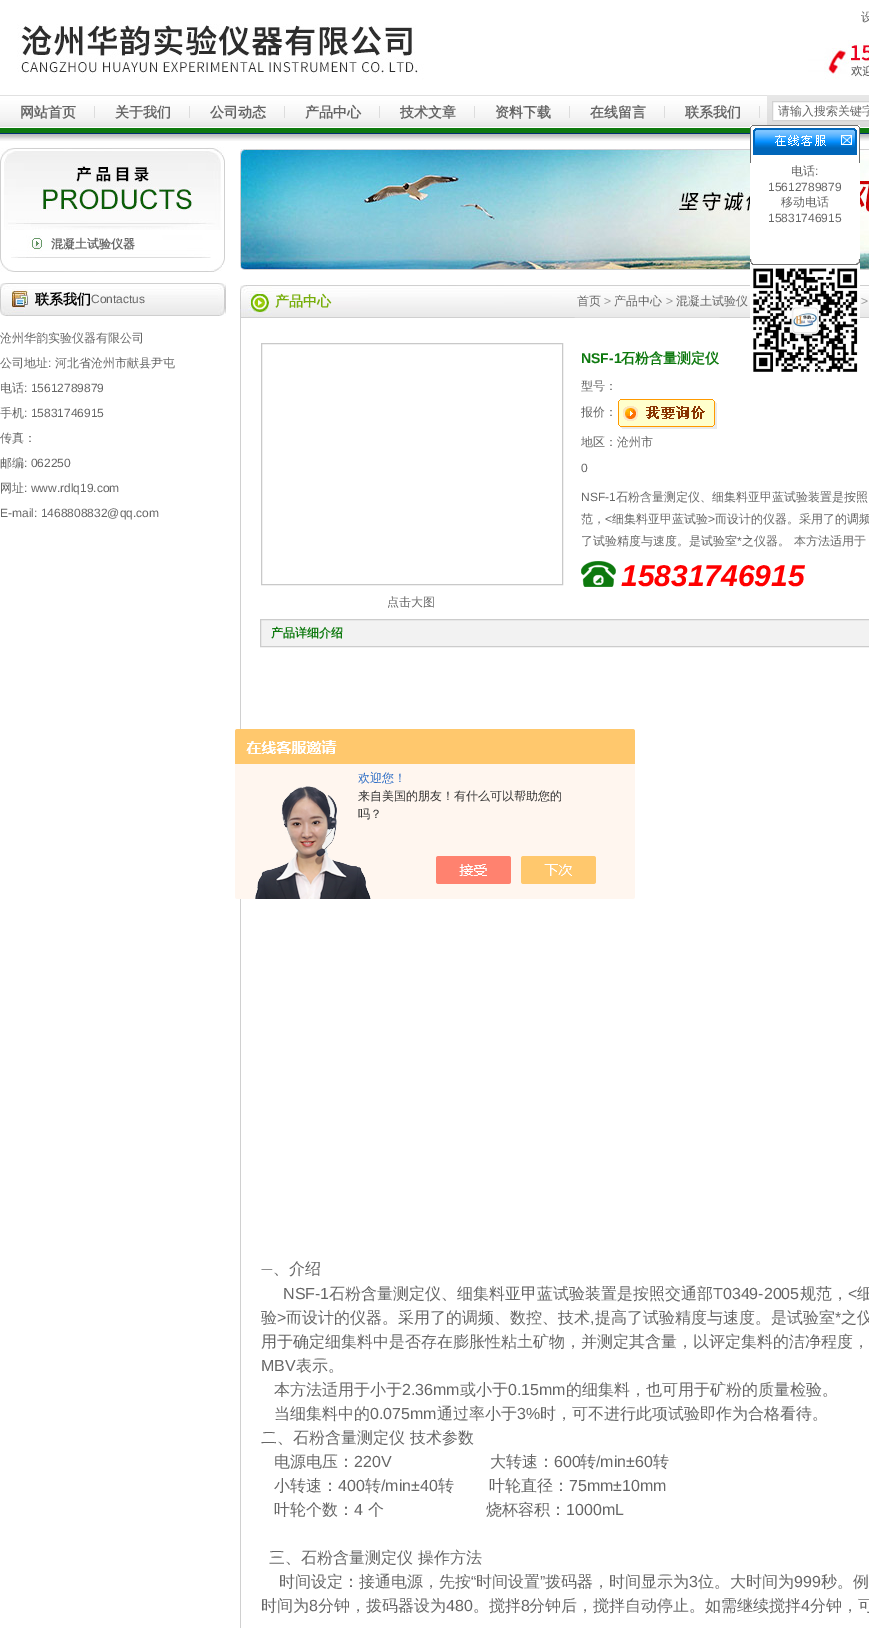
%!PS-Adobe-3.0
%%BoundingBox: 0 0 869 1628
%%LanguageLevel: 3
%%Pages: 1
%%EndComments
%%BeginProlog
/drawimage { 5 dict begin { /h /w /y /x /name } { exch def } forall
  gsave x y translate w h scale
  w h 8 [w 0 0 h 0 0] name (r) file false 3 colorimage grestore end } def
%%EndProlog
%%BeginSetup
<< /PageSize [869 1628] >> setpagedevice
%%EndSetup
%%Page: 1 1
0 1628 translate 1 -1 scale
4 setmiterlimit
1 setgray
0 0 869 1628 rectfill
(images/1.raw) 0 95 869 46 drawimage
(images/2.raw) 17 24 852 56 drawimage
0.867 setgray
94 106 1 12 rectfill
189 106 1 12 rectfill
284 106 1 12 rectfill
379 106 1 12 rectfill
474 106 1 12 rectfill
569 106 1 12 rectfill
664 106 1 12 rectfill
759 106 1 12 rectfill
(images/3.raw) 767 95 102 32 drawimage
1 setgray
newpath 772.5 101.5 moveto 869.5 101.5 lineto 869.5 120.5 lineto 772.5 120.5 lineto closepath gsave fill grestore
0.824 setgray
stroke
(images/11.raw) 240 149 629 121 drawimage
(images/4.raw) 750 125 110 38 drawimage
1 setgray
750 163 110 96 rectfill
(images/5.raw) 750 259 110 6 drawimage
(images/12.raw) 240 285 629 33 drawimage
(images/6.raw) 750 265 110 107 drawimage
(images/7.raw) 0 147 225 83 drawimage
0.816 setgray
224 230 1 28 rectfill
0 230 1 28 rectfill
(images/8.raw) 11 235 200 23 drawimage
(images/9.raw) 0 258 225 14 drawimage
(images/10.raw) 0 283 226 33 drawimage
240 318 1 1310 rectfill
(images/13.raw) 618 399 99 30 drawimage
(images/14.raw) 581 561 35 26 drawimage
0.788 setgray
261.5 343.5 301 241 rectstroke
0.949 setgray
newpath 260.5 619.5 moveto 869.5 619.5 lineto 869.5 646.5 lineto 260.5 646.5 lineto closepath gsave fill grestore
0.8 setgray
stroke
(images/15.raw) 235 729 400 170 drawimage
/WenQuanYiZenHei-Medium [12 0 0 -12 0 0] selectfont
0.4 setgray
861 21 moveto (设) show
/WenQuanYiZenHei-Bold [14 0 0 -14 0 0] selectfont
20 117 moveto (网站首页) show
115 117 moveto (关于我们) show
210 117 moveto (公司动态) show
305 117 moveto (产品中心) show
400 117 moveto (技术文章) show
495 117 moveto (资料下载) show
590 117 moveto (在线留言) show
685 117 moveto (联系我们) show
/WenQuanYiZenHei-Medium [12 0 0 -12 0 0] selectfont
778 115 moveto (请输入搜索关键字) show
791 175 moveto (电话) show
/LiberationSans-Regular [12 0 0 -12 0 0] selectfont
815 175 moveto (:) show
768 191 moveto (15612789879) show
/WenQuanYiZenHei-Medium [12 0 0 -12 0 0] selectfont
781 206 moveto (移动电话) show
/LiberationSans-Regular [12 0 0 -12 0 0] selectfont
768 222 moveto (15831746915) show
/WenQuanYiZenHei-Bold [12 0 0 -12 0 0] selectfont
51 248 moveto (混凝土试验仪器) show
/WenQuanYiZenHei-Bold [14 0 0 -14 0 0] selectfont
0 setgray
35 304 moveto (联系我们) show
/LiberationSans-Regular [12 0 0 -12 0 0] selectfont
0.4 setgray
91 303 moveto (Contactus) show
/WenQuanYiZenHei-Medium [12 0 0 -12 0 0] selectfont
0 342 moveto (沧州华韵实验仪器有限公司) show
0 367 moveto (公司地址) show
/LiberationSans-Regular [12 0 0 -12 0 0] selectfont
48 367 moveto (:) show
/WenQuanYiZenHei-Medium [12 0 0 -12 0 0] selectfont
55 367 moveto (河北省沧州市献县尹屯) show
0 392 moveto (电话) show
/LiberationSans-Regular [12 0 0 -12 0 0] selectfont
24 392 moveto (: 15612789879) show
/WenQuanYiZenHei-Medium [12 0 0 -12 0 0] selectfont
0 417 moveto (手机) show
/LiberationSans-Regular [12 0 0 -12 0 0] selectfont
24 417 moveto (: 15831746915) show
/WenQuanYiZenHei-Medium [12 0 0 -12 0 0] selectfont
0 442 moveto (传真：) show
0 467 moveto (邮编) show
/LiberationSans-Regular [12 0 0 -12 0 0] selectfont
24 467 moveto (: 062250) show
/WenQuanYiZenHei-Medium [12 0 0 -12 0 0] selectfont
0 492 moveto (网址) show
/LiberationSans-Regular [12 0 0 -12 0 0] selectfont
24 492 moveto (: www.rdlq19.com) show
0 517 moveto (E-mail: 1468808832@qq.com) show
/WenQuanYiZenHei-Bold [14 0 0 -14 0 0] selectfont
0.467 0.682 0.043 setrgbcolor
275 306 moveto (产品中心) show
/WenQuanYiZenHei-Medium [12 0 0 -12 0 0] selectfont
0.4 setgray
577 305 moveto (首页) show
/LiberationSans-Regular [12 0 0 -12 0 0] selectfont
0.6 setgray
604 305 moveto (>) show
/WenQuanYiZenHei-Medium [12 0 0 -12 0 0] selectfont
0.4 setgray
614 305 moveto (产品中心) show
/LiberationSans-Regular [12 0 0 -12 0 0] selectfont
0.6 setgray
666 305 moveto (>) show
/WenQuanYiZenHei-Medium [12 0 0 -12 0 0] selectfont
0.4 setgray
676 305 moveto (混凝土试验仪) show
/LiberationSans-Regular [12 0 0 -12 0 0] selectfont
0.6 setgray
861 305 moveto (>) show
/LiberationSans-Bold [14 0 0 -14 0 0] selectfont
0.051 0.475 0.055 setrgbcolor
581 363 moveto (NSF-1) show
/WenQuanYiZenHei-Bold [14 0 0 -14 0 0] selectfont
621 363 moveto (石粉含量测定仪) show
/WenQuanYiZenHei-Medium [12 0 0 -12 0 0] selectfont
0.4 setgray
581 390 moveto (型号：) show
581 416 moveto (报价：) show
581 446 moveto (地区：沧州市) show
/LiberationSans-Regular [12 0 0 -12 0 0] selectfont
581 472 moveto (0) show
581 501 moveto (NSF-1) show
/WenQuanYiZenHei-Medium [12 0 0 -12 0 0] selectfont
616 501 moveto (石粉含量测定仪、细集料亚甲蓝试验装置是按照) show
581 523 moveto (范，) show
/LiberationSans-Regular [12 0 0 -12 0 0] selectfont
605 523 moveto (<) show
/WenQuanYiZenHei-Medium [12 0 0 -12 0 0] selectfont
612 523 moveto (细集料亚甲蓝试验) show
/LiberationSans-Regular [12 0 0 -12 0 0] selectfont
708 523 moveto (>) show
/WenQuanYiZenHei-Medium [12 0 0 -12 0 0] selectfont
715 523 moveto (而设计的仪器。采用了的调频) show
581 545 moveto (了试验精度与速度。是试验室) show
/LiberationSans-Regular [12 0 0 -12 0 0] selectfont
737 545 moveto (*) show
/WenQuanYiZenHei-Medium [12 0 0 -12 0 0] selectfont
742 545 moveto (之仪器。 本方法适用于) show
/LiberationSans-BoldItalic [30 0 0 -30 0 0] selectfont
1 0 0 setrgbcolor
621 586 moveto (15831746915) show
/WenQuanYiZenHei-Medium [12 0 0 -12 0 0] selectfont
0.4 setgray
387 606 moveto (点击大图) show
/WenQuanYiZenHei-Bold [12 0 0 -12 0 0] selectfont
0.051 0.475 0.055 setrgbcolor
271 637 moveto (产品详细介绍) show
/WenQuanYiZenHei-Medium [12 0 0 -12 0 0] selectfont
0.4 setgray
261 1274 moveto (一) show
/WenQuanYiZenHei-Medium [16 0 0 -16 0 0] selectfont
273 1274 moveto (、介绍) show
/LiberationSans-Regular [16 0 0 -16 0 0] selectfont
283 1299 moveto (NSF-1) show
/WenQuanYiZenHei-Medium [16 0 0 -16 0 0] selectfont
329 1299 moveto (石粉含量测定仪、细集料亚甲蓝试验装置是按照交通部) show
/LiberationSans-Regular [16 0 0 -16 0 0] selectfont
713 1299 moveto (T0349-2005) show
/WenQuanYiZenHei-Medium [16 0 0 -16 0 0] selectfont
800 1299 moveto (规范，) show
/LiberationSans-Regular [16 0 0 -16 0 0] selectfont
848 1299 moveto (<) show
/WenQuanYiZenHei-Medium [16 0 0 -16 0 0] selectfont
857 1299 moveto (细) show
261 1323 moveto (验) show
/LiberationSans-Regular [16 0 0 -16 0 0] selectfont
277 1323 moveto (>) show
/WenQuanYiZenHei-Medium [16 0 0 -16 0 0] selectfont
286 1323 moveto (而设计的仪器。采用了的调频、数控、技术) show
595 1323 moveto (提高了试验精度与速度。是试验室) show
/LiberationSans-Regular [16 0 0 -16 0 0] selectfont
835 1323 moveto (*) show
/WenQuanYiZenHei-Medium [16 0 0 -16 0 0] selectfont
841 1323 moveto (之仪) show
/LiberationSans-Regular [16 0 0 -16 0 0] selectfont
590 1323 moveto (,) show
/WenQuanYiZenHei-Medium [16 0 0 -16 0 0] selectfont
261 1347 moveto (用于确定细集料中是否存在膨胀性粘土矿物，并测定其含量，以评定集料的洁净程度，) show
/LiberationSans-Regular [16 0 0 -16 0 0] selectfont
261 1371 moveto (MBV) show
/WenQuanYiZenHei-Medium [16 0 0 -16 0 0] selectfont
296 1371 moveto (表示。) show
274 1395 moveto (本方法适用于小于) show
/LiberationSans-Regular [16 0 0 -16 0 0] selectfont
402 1395 moveto (2.36mm) show
/WenQuanYiZenHei-Medium [16 0 0 -16 0 0] selectfont
460 1395 moveto (或小于) show
/LiberationSans-Regular [16 0 0 -16 0 0] selectfont
508 1395 moveto (0.15mm) show
/WenQuanYiZenHei-Medium [16 0 0 -16 0 0] selectfont
566 1395 moveto (的细集料，也可用于矿粉的质量检验。) show
274 1419 moveto (当细集料中的) show
/LiberationSans-Regular [16 0 0 -16 0 0] selectfont
370 1419 moveto (0.075mm) show
/WenQuanYiZenHei-Medium [16 0 0 -16 0 0] selectfont
437 1419 moveto (通过率小于) show
/LiberationSans-Regular [16 0 0 -16 0 0] selectfont
517 1419 moveto (3%) show
/WenQuanYiZenHei-Medium [16 0 0 -16 0 0] selectfont
540 1419 moveto (时，可不进行此项试验即作为合格看待。) show
261 1443 moveto (二、石粉含量测定仪 技术参数) show
274 1467 moveto (电源电压：) show
/LiberationSans-Regular [16 0 0 -16 0 0] selectfont
354 1467 moveto (220V) show
/WenQuanYiZenHei-Medium [16 0 0 -16 0 0] selectfont
490 1467 moveto (大转速：) show
/LiberationSans-Regular [16 0 0 -16 0 0] selectfont
554 1467 moveto (600) show
/WenQuanYiZenHei-Medium [16 0 0 -16 0 0] selectfont
580 1467 moveto (转) show
/LiberationSans-Regular [16 0 0 -16 0 0] selectfont
596 1467 moveto (/min±60) show
/WenQuanYiZenHei-Medium [16 0 0 -16 0 0] selectfont
653 1467 moveto (转) show
274 1491 moveto (小转速：) show
/LiberationSans-Regular [16 0 0 -16 0 0] selectfont
338 1491 moveto (400) show
/WenQuanYiZenHei-Medium [16 0 0 -16 0 0] selectfont
365 1491 moveto (转) show
/LiberationSans-Regular [16 0 0 -16 0 0] selectfont
381 1491 moveto (/min±40) show
/WenQuanYiZenHei-Medium [16 0 0 -16 0 0] selectfont
438 1491 moveto (转) show
489 1491 moveto (叶轮直径：) show
/LiberationSans-Regular [16 0 0 -16 0 0] selectfont
569 1491 moveto (75mm±10mm) show
/WenQuanYiZenHei-Medium [16 0 0 -16 0 0] selectfont
274 1515 moveto (叶轮个数：) show
/LiberationSans-Regular [16 0 0 -16 0 0] selectfont
354 1515 moveto (4) show
/WenQuanYiZenHei-Medium [16 0 0 -16 0 0] selectfont
368 1515 moveto (个) show
486 1515 moveto (烧杯容积：) show
/LiberationSans-Regular [16 0 0 -16 0 0] selectfont
566 1515 moveto (1000mL) show
/WenQuanYiZenHei-Medium [16 0 0 -16 0 0] selectfont
269 1563 moveto (三、石粉含量测定仪 操作方法) show
279 1587 moveto (时间设定：接通电源，先按) show
/LiberationSans-Regular [16 0 0 -16 0 0] selectfont
471 1587 moveto (“) show
/WenQuanYiZenHei-Medium [16 0 0 -16 0 0] selectfont
476 1587 moveto (时间设置) show
/LiberationSans-Regular [16 0 0 -16 0 0] selectfont
540 1587 moveto (”) show
/WenQuanYiZenHei-Medium [16 0 0 -16 0 0] selectfont
545 1587 moveto (拨码器，时间显示为) show
/LiberationSans-Regular [16 0 0 -16 0 0] selectfont
689 1587 moveto (3) show
/WenQuanYiZenHei-Medium [16 0 0 -16 0 0] selectfont
698 1587 moveto (位。大时间为) show
/LiberationSans-Regular [16 0 0 -16 0 0] selectfont
794 1587 moveto (999) show
/WenQuanYiZenHei-Medium [16 0 0 -16 0 0] selectfont
821 1587 moveto (秒。例) show
261 1611 moveto (时间为) show
/LiberationSans-Regular [16 0 0 -16 0 0] selectfont
309 1611 moveto (8) show
/WenQuanYiZenHei-Medium [16 0 0 -16 0 0] selectfont
318 1611 moveto (分钟，拨码器设为) show
/LiberationSans-Regular [16 0 0 -16 0 0] selectfont
446 1611 moveto (480) show
/WenQuanYiZenHei-Medium [16 0 0 -16 0 0] selectfont
473 1611 moveto (。搅拌) show
/LiberationSans-Regular [16 0 0 -16 0 0] selectfont
521 1611 moveto (8) show
/WenQuanYiZenHei-Medium [16 0 0 -16 0 0] selectfont
529 1611 moveto (分钟后，搅拌自动停止。如需继续搅拌) show
/LiberationSans-Regular [16 0 0 -16 0 0] selectfont
801 1611 moveto (4) show
/WenQuanYiZenHei-Medium [16 0 0 -16 0 0] selectfont
810 1611 moveto (分钟，可) show
/WenQuanYiZenHei-Medium [12 0 0 -12 0 0] selectfont
0.18 0.431 0.776 setrgbcolor
358 782 moveto (欢迎您！) show
0.2 setgray
358 800 moveto (来自美国的朋友！有什么可以帮助您的) show
358 818 moveto (吗？) show
showpage
%%EOF
